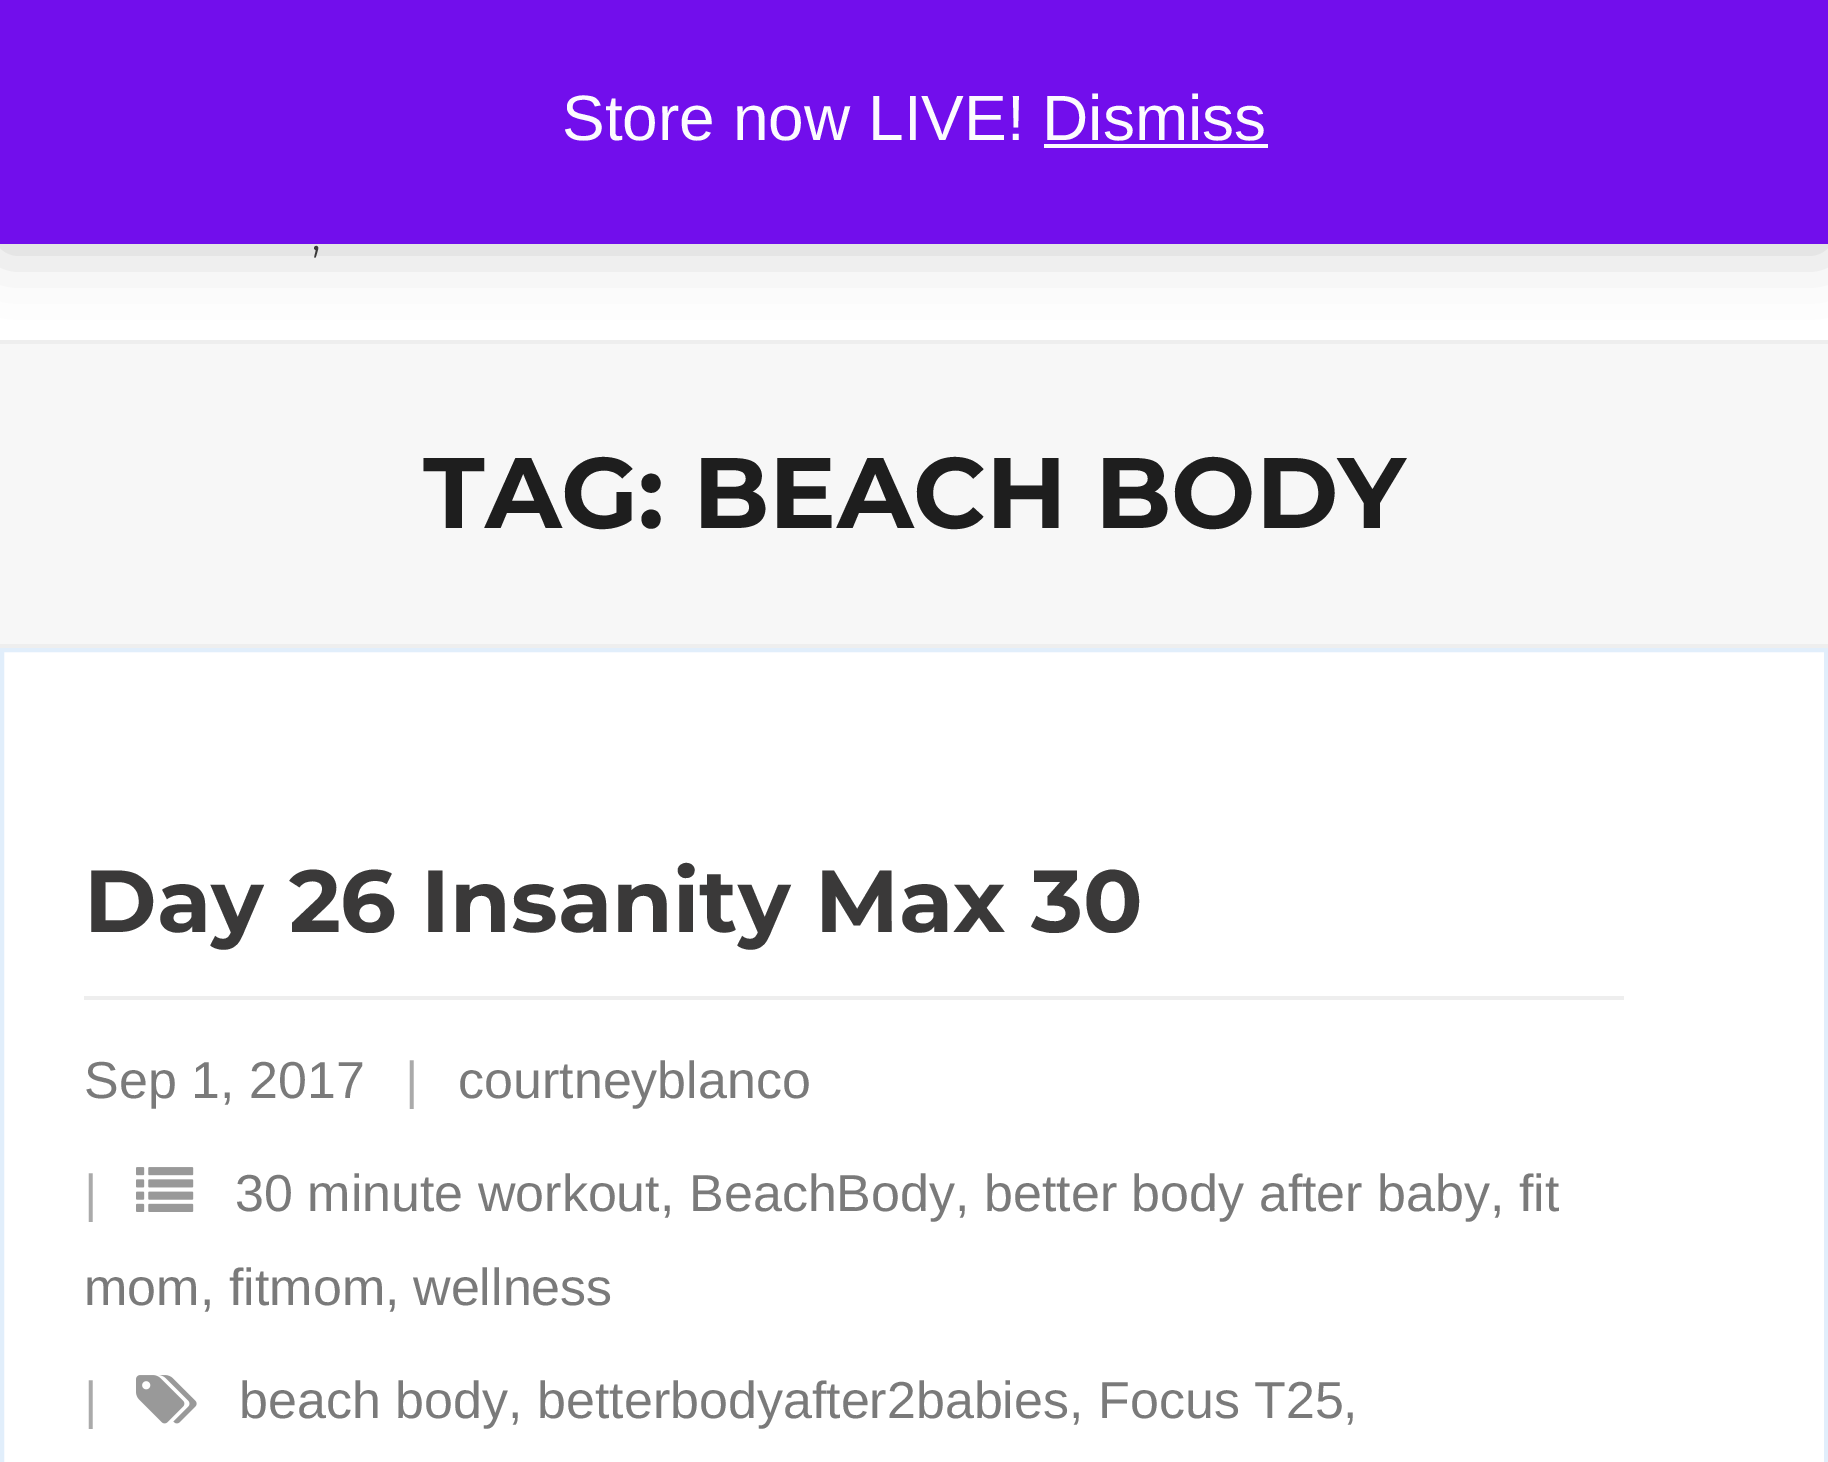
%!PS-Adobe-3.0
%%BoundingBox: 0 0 1828 1462
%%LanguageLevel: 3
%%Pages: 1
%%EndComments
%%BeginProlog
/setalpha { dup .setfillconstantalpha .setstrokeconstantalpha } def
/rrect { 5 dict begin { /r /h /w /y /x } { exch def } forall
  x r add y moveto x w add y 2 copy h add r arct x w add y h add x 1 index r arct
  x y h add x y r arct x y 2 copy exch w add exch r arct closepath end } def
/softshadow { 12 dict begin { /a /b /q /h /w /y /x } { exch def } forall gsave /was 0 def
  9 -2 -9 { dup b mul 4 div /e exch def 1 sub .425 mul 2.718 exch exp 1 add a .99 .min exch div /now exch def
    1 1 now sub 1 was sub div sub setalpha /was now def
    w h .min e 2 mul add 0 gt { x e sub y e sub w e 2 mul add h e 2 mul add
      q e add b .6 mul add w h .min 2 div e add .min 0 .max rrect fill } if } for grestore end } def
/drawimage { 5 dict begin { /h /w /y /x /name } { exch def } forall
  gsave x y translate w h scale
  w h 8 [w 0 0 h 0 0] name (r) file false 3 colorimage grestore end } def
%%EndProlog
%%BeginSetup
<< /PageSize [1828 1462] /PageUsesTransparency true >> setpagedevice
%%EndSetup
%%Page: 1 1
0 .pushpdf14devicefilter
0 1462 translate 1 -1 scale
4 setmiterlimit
1 setgray
0 0 1828 1462 rectfill
0.969 setgray
0 344 1828 300 rectfill
0.933 setgray
0 340 1828 4 rectfill
0 setgray
0 4 1828 244 0 32 0.2 softshadow
0.447 0.055 0.925 setrgbcolor
0 0 1828 244 rectfill
0.988 0.984 0.996 setrgbcolor
1044 144 224 4 rectfill
0.933 setgray
0 644 1828 4 rectfill
0.882 0.933 0.984 setrgbcolor
4 setlinewidth
2 650 1824 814 rectstroke
0.933 setgray
84 996 1540 4 rectfill
(images/1.raw) 136 1167 58 45 drawimage
(images/2.raw) 136 1375 61 49 drawimage
/LiberationSans-Regular [64 0 0 -64 0 0] selectfont
0.988 0.984 0.996 setrgbcolor
562 140 moveto (Store now LIVE! Dismiss) show
/Montserrat-Light [52 0 0 -52 0 0] selectfont
0.227 0.224 0.224 setrgbcolor
311 250 moveto (,) show
/Montserrat-Bold [100 0 0 -100 0 0] selectfont
0.118 setgray
423 528 moveto (TAG: BEACH BODY) show
/Montserrat-Bold [88 0 0 -88 0 0] selectfont
0.227 0.224 0.224 setrgbcolor
84 932 moveto (Day 26 Insanity Max 30) show
/LiberationSans-Regular [52 0 0 -52 0 0] selectfont
0.478 setgray
84 1098 moveto (Sep 1, 2017) show
0.667 setgray
405 1098 moveto (|) show
0.478 setgray
458 1098 moveto (courtneyblanco) show
0.667 setgray
84 1211 moveto (|) show
0.478 setgray
235 1211 moveto (30 minute workout) show
660 1211 moveto (,) show
689 1211 moveto (BeachBody) show
955 1211 moveto (,) show
984 1211 moveto (better body after baby) show
1490 1211 moveto (,) show
1519 1211 moveto (fit) show
84 1305 moveto (mom) show
200 1305 moveto (,) show
229 1305 moveto (fitmom) show
385 1305 moveto (,) show
413 1305 moveto (wellness) show
0.667 setgray
84 1418 moveto (|) show
0.478 setgray
239 1418 moveto (beach body) show
508 1418 moveto (,) show
537 1418 moveto (betterbodyafter2babies) show
1069 1418 moveto (,) show
1098 1418 moveto (Focus T25) show
1343 1418 moveto (,) show
.poppdf14devicefilter showpage
%%EOF
